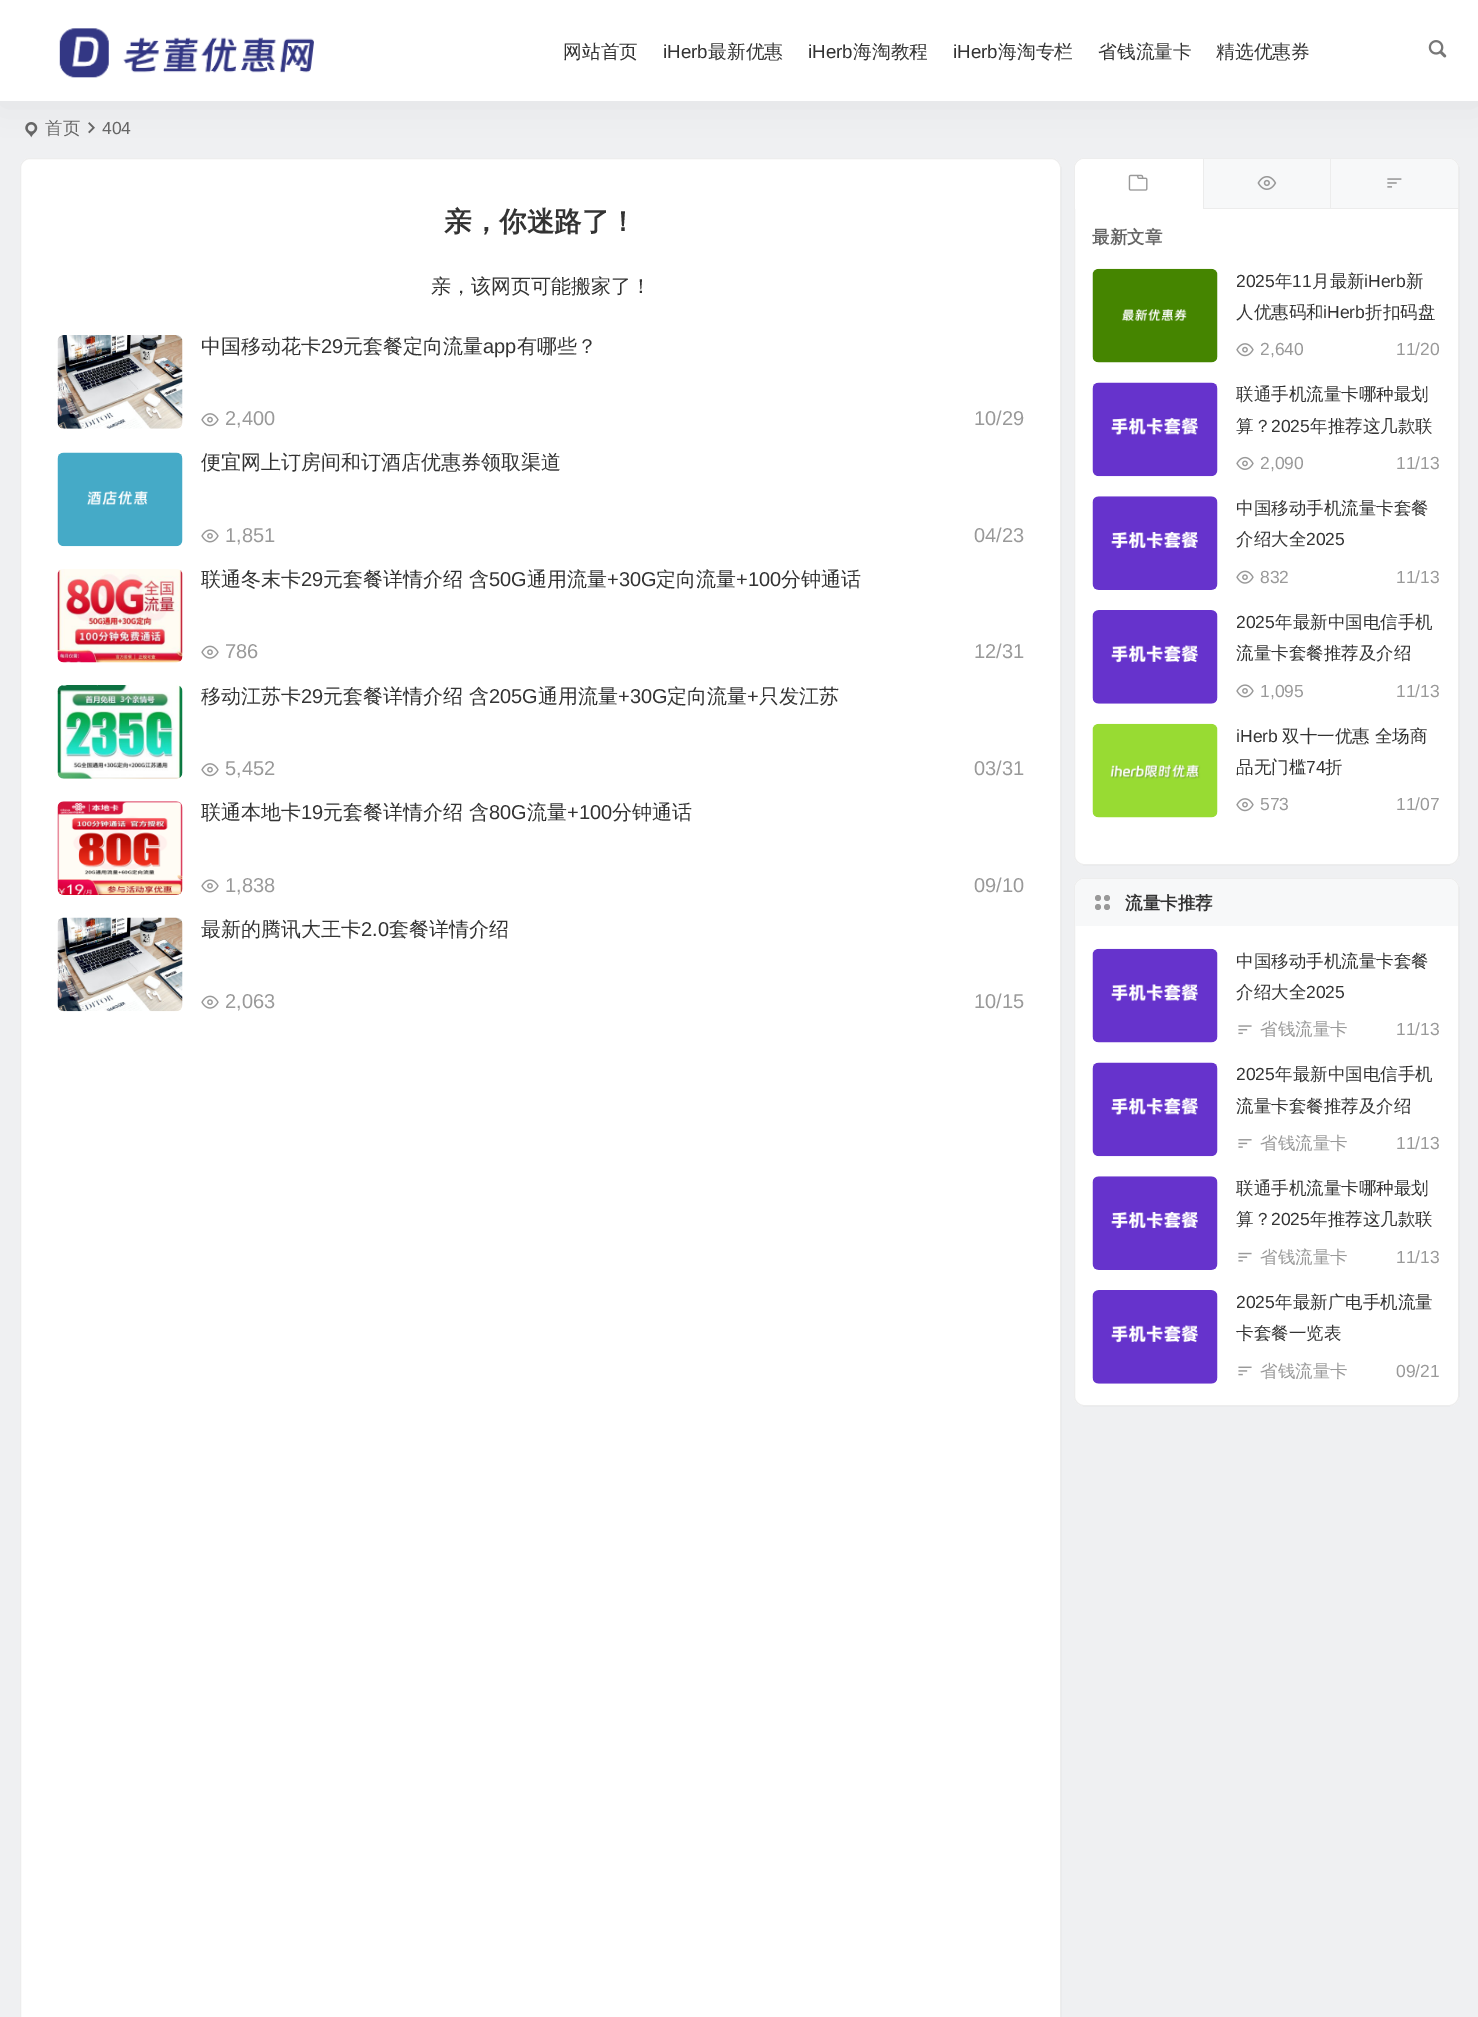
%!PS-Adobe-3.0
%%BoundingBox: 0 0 1478 2017
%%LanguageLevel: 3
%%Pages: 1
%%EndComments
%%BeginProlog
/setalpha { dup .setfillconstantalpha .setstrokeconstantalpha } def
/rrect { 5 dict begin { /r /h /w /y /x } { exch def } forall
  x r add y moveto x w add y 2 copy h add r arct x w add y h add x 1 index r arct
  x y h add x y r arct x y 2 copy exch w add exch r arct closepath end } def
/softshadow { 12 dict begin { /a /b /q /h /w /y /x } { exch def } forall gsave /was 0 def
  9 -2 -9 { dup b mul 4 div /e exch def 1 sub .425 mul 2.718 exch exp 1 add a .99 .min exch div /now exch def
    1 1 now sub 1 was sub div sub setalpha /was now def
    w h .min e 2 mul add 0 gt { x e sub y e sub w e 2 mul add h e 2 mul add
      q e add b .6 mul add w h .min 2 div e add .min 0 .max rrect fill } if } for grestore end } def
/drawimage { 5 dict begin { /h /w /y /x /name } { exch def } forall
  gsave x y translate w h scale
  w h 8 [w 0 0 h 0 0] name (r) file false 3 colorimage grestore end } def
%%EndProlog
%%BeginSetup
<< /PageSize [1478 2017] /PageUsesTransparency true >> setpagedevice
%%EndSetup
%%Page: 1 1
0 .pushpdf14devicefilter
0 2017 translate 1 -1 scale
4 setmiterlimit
0.937 0.941 0.949 setrgbcolor
0 0 1478 2017 rectfill
(images/3.raw) 25 122 13 16 drawimage
(images/4.raw) 88 122 7 12 drawimage
1 setgray
20 158 1041 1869 10 rrect fill
0.07 setalpha
0 setgray
20.5 158.5 1040 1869 9.5 rrect stroke
1 setalpha
1 setgray
1074 158 385 707 10 rrect fill
0.07 setalpha
0 setgray
1074.5 158.5 384 706 9.5 rrect stroke
1 setalpha
0.925 setgray
1074 208 385 1 rectfill
1 setgray
newpath 1085 159 moveto 1203 159 lineto 1203 209 lineto 1075 209 lineto 1075 169 lineto 1075 163.5 1079.5 159 1085 159 curveto closepath fill
0.969 0.973 0.976 setrgbcolor
1204 159 126 49 rectfill
0.925 setgray
1203 159 1 50 rectfill
0.969 0.973 0.976 setrgbcolor
newpath 1330 159 moveto 1448 159 lineto 1453.5 159 1458 163.5 1458 169 curveto 1458 209 lineto 1330 209 lineto closepath fill
0.925 setgray
1330 208 128 1 rectfill
1330 159 1 50 rectfill
0 setgray
0 4 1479 101 0 19 0.06 softshadow
1 setgray
0 0 1478 101 rectfill
(images/1.raw) 59 28 255 50 drawimage
(images/2.raw) 1428 40 19 18 drawimage
(images/5.raw) 57 335 126 94 drawimage
(images/6.raw) 201 413 18 14 drawimage
(images/7.raw) 57 452 126 95 drawimage
(images/8.raw) 201 529 18 14 drawimage
(images/9.raw) 57 569 126 94 drawimage
(images/10.raw) 201 645 18 14 drawimage
(images/11.raw) 57 685 126 94 drawimage
(images/6.raw) 201 763 18 14 drawimage
(images/12.raw) 57 801 126 94 drawimage
(images/8.raw) 201 879 18 14 drawimage
(images/13.raw) 57 917 126 95 drawimage
(images/10.raw) 201 995 18 14 drawimage
(images/14.raw) 1128 174 20 17 drawimage
(images/15.raw) 1257 176 20 14 drawimage
(images/16.raw) 1387 178 15 10 drawimage
(images/17.raw) 1092 268 126 95 drawimage
(images/6.raw) 1236 343 18 14 drawimage
(images/18.raw) 1092 382 126 95 drawimage
(images/19.raw) 1236 456 18 14 drawimage
(images/20.raw) 1092 496 126 94 drawimage
(images/10.raw) 1236 570 18 14 drawimage
(images/21.raw) 1092 610 126 94 drawimage
(images/8.raw) 1236 684 18 14 drawimage
(images/22.raw) 1092 723 126 95 drawimage
(images/6.raw) 1236 798 18 14 drawimage
1074 878 385 528 10 rrect fill
0.07 setalpha
0 setgray
1074.5 878.5 384 527 9.5 rrect stroke
1 setalpha
0.969 0.973 0.976 setrgbcolor
newpath 1085 879 moveto 1448 879 lineto 1453.5 879 1458 883.5 1458 889 curveto 1458 926 lineto 1075 926 lineto 1075 889 lineto 1075 883.5 1079.5 879 1085 879 curveto closepath fill
0.6 setgray
newpath 1098 898 3 0 360 arc closepath fill
newpath 1107 898 3 0 360 arc closepath fill
newpath 1098 907 3 0 360 arc closepath fill
newpath 1107 907 3 0 360 arc closepath fill
(images/23.raw) 1092 948 126 95 drawimage
(images/24.raw) 1238 1025 14 10 drawimage
(images/25.raw) 1092 1062 126 95 drawimage
(images/26.raw) 1238 1139 14 9 drawimage
(images/20.raw) 1092 1176 126 94 drawimage
(images/27.raw) 1238 1252 14 10 drawimage
(images/28.raw) 1092 1290 126 94 drawimage
(images/29.raw) 1238 1366 14 10 drawimage
/WenQuanYiZenHei-Medium [18.75 0 0 -18.75 0 0] selectfont
0.2 setgray
563 58 moveto (网站首页) show
/LiberationSans-Regular [18.75 0 0 -18.75 0 0] selectfont
663 58 moveto (iHerb) show
/WenQuanYiZenHei-Medium [18.75 0 0 -18.75 0 0] selectfont
708 58 moveto (最新优惠) show
/LiberationSans-Regular [18.75 0 0 -18.75 0 0] selectfont
808 58 moveto (iHerb) show
/WenQuanYiZenHei-Medium [18.75 0 0 -18.75 0 0] selectfont
853 58 moveto (海淘教程) show
/LiberationSans-Regular [18.75 0 0 -18.75 0 0] selectfont
953 58 moveto (iHerb) show
/WenQuanYiZenHei-Medium [18.75 0 0 -18.75 0 0] selectfont
998 58 moveto (海淘专栏) show
1098 58 moveto (省钱流量卡) show
1216 58 moveto (精选优惠券) show
/WenQuanYiZenHei-Medium [17.5 0 0 -17.5 0 0] selectfont
0.4 setgray
45 134 moveto (首页) show
/LiberationSans-Regular [17.5 0 0 -17.5 0 0] selectfont
102 134 moveto (404) show
/WenQuanYiZenHei-Bold [27.5 0 0 -27.5 0 0] selectfont
0.2 setgray
444 231 moveto (亲，你迷路了！) show
/WenQuanYiZenHei-Medium [20 0 0 -20 0 0] selectfont
431 293 moveto (亲，该网页可能搬家了！) show
201 353 moveto (中国移动花卡) show
/LiberationSans-Regular [20 0 0 -20 0 0] selectfont
321 353 moveto (29) show
/WenQuanYiZenHei-Medium [20 0 0 -20 0 0] selectfont
343 353 moveto (元套餐定向流量) show
/LiberationSans-Regular [20 0 0 -20 0 0] selectfont
483 353 moveto (app) show
/WenQuanYiZenHei-Medium [20 0 0 -20 0 0] selectfont
517 353 moveto (有哪些？) show
/LiberationSans-Regular [20 0 0 -20 0 0] selectfont
0.6 setgray
225 425 moveto (2,400) show
974 425 moveto (10/29) show
/WenQuanYiZenHei-Medium [20 0 0 -20 0 0] selectfont
0.2 setgray
201 469 moveto (便宜网上订房间和订酒店优惠券领取渠道) show
/LiberationSans-Regular [20 0 0 -20 0 0] selectfont
0.6 setgray
225 542 moveto (1,851) show
974 542 moveto (04/23) show
/WenQuanYiZenHei-Medium [20 0 0 -20 0 0] selectfont
0.2 setgray
201 586 moveto (联通冬末卡) show
/LiberationSans-Regular [20 0 0 -20 0 0] selectfont
301 586 moveto (29) show
/WenQuanYiZenHei-Medium [20 0 0 -20 0 0] selectfont
323 586 moveto (元套餐详情介绍 含) show
/LiberationSans-Regular [20 0 0 -20 0 0] selectfont
489 586 moveto (50G) show
/WenQuanYiZenHei-Medium [20 0 0 -20 0 0] selectfont
527 586 moveto (通用流量) show
/LiberationSans-Regular [20 0 0 -20 0 0] selectfont
607 586 moveto (+30G) show
/WenQuanYiZenHei-Medium [20 0 0 -20 0 0] selectfont
656 586 moveto (定向流量) show
/LiberationSans-Regular [20 0 0 -20 0 0] selectfont
736 586 moveto (+100) show
/WenQuanYiZenHei-Medium [20 0 0 -20 0 0] selectfont
781 586 moveto (分钟通话) show
/LiberationSans-Regular [20 0 0 -20 0 0] selectfont
0.6 setgray
225 658 moveto (786) show
974 658 moveto (12/31) show
/WenQuanYiZenHei-Medium [20 0 0 -20 0 0] selectfont
0.2 setgray
201 703 moveto (移动江苏卡) show
/LiberationSans-Regular [20 0 0 -20 0 0] selectfont
301 703 moveto (29) show
/WenQuanYiZenHei-Medium [20 0 0 -20 0 0] selectfont
323 703 moveto (元套餐详情介绍 含) show
/LiberationSans-Regular [20 0 0 -20 0 0] selectfont
489 703 moveto (205G) show
/WenQuanYiZenHei-Medium [20 0 0 -20 0 0] selectfont
538 703 moveto (通用流量) show
/LiberationSans-Regular [20 0 0 -20 0 0] selectfont
618 703 moveto (+30G) show
/WenQuanYiZenHei-Medium [20 0 0 -20 0 0] selectfont
667 703 moveto (定向流量) show
/LiberationSans-Regular [20 0 0 -20 0 0] selectfont
747 703 moveto (+) show
/WenQuanYiZenHei-Medium [20 0 0 -20 0 0] selectfont
759 703 moveto (只发江苏) show
/LiberationSans-Regular [20 0 0 -20 0 0] selectfont
0.6 setgray
225 775 moveto (5,452) show
974 775 moveto (03/31) show
/WenQuanYiZenHei-Medium [20 0 0 -20 0 0] selectfont
0.2 setgray
201 819 moveto (联通本地卡) show
/LiberationSans-Regular [20 0 0 -20 0 0] selectfont
301 819 moveto (19) show
/WenQuanYiZenHei-Medium [20 0 0 -20 0 0] selectfont
323 819 moveto (元套餐详情介绍 含) show
/LiberationSans-Regular [20 0 0 -20 0 0] selectfont
489 819 moveto (80G) show
/WenQuanYiZenHei-Medium [20 0 0 -20 0 0] selectfont
527 819 moveto (流量) show
/LiberationSans-Regular [20 0 0 -20 0 0] selectfont
567 819 moveto (+100) show
/WenQuanYiZenHei-Medium [20 0 0 -20 0 0] selectfont
612 819 moveto (分钟通话) show
/LiberationSans-Regular [20 0 0 -20 0 0] selectfont
0.6 setgray
225 892 moveto (1,838) show
974 892 moveto (09/10) show
/WenQuanYiZenHei-Medium [20 0 0 -20 0 0] selectfont
0.2 setgray
201 936 moveto (最新的腾讯大王卡) show
/LiberationSans-Regular [20 0 0 -20 0 0] selectfont
361 936 moveto (2.0) show
/WenQuanYiZenHei-Medium [20 0 0 -20 0 0] selectfont
389 936 moveto (套餐详情介绍) show
/LiberationSans-Regular [20 0 0 -20 0 0] selectfont
0.6 setgray
225 1008 moveto (2,063) show
974 1008 moveto (10/15) show
/WenQuanYiZenHei-Bold [17.5 0 0 -17.5 0 0] selectfont
0.4 setgray
1092 243 moveto (最新文章) show
/LiberationSans-Regular [17.5 0 0 -17.5 0 0] selectfont
0.2 setgray
1236 287 moveto (2025) show
/WenQuanYiZenHei-Medium [17.5 0 0 -17.5 0 0] selectfont
1275 287 moveto (年) show
/LiberationSans-Regular [17.5 0 0 -17.5 0 0] selectfont
1292 287 moveto (11) show
/WenQuanYiZenHei-Medium [17.5 0 0 -17.5 0 0] selectfont
1312 287 moveto (月最新) show
/LiberationSans-Regular [17.5 0 0 -17.5 0 0] selectfont
1364 287 moveto (iHerb) show
/WenQuanYiZenHei-Medium [17.5 0 0 -17.5 0 0] selectfont
1406 287 moveto (新) show
1236 318 moveto (人优惠码和) show
/LiberationSans-Regular [17.5 0 0 -17.5 0 0] selectfont
1323 318 moveto (iHerb) show
/WenQuanYiZenHei-Medium [17.5 0 0 -17.5 0 0] selectfont
1365 318 moveto (折扣码盘) show
/LiberationSans-Regular [17.5 0 0 -17.5 0 0] selectfont
0.6 setgray
1260 355 moveto (2,640) show
1396 355 moveto (11/20) show
/WenQuanYiZenHei-Medium [17.5 0 0 -17.5 0 0] selectfont
0.2 setgray
1236 400 moveto (联通手机流量卡哪种最划) show
1236 432 moveto (算？) show
/LiberationSans-Regular [17.5 0 0 -17.5 0 0] selectfont
1271 432 moveto (2025) show
/WenQuanYiZenHei-Medium [17.5 0 0 -17.5 0 0] selectfont
1310 432 moveto (年推荐这几款联) show
/LiberationSans-Regular [17.5 0 0 -17.5 0 0] selectfont
0.6 setgray
1260 469 moveto (2,090) show
1396 469 moveto (11/13) show
/WenQuanYiZenHei-Medium [17.5 0 0 -17.5 0 0] selectfont
0.2 setgray
1236 514 moveto (中国移动手机流量卡套餐) show
1236 545 moveto (介绍大全) show
/LiberationSans-Regular [17.5 0 0 -17.5 0 0] selectfont
1306 545 moveto (2025) show
0.6 setgray
1260 583 moveto (832) show
1396 583 moveto (11/13) show
0.2 setgray
1236 628 moveto (2025) show
/WenQuanYiZenHei-Medium [17.5 0 0 -17.5 0 0] selectfont
1275 628 moveto (年最新中国电信手机) show
1236 659 moveto (流量卡套餐推荐及介绍) show
/LiberationSans-Regular [17.5 0 0 -17.5 0 0] selectfont
0.6 setgray
1260 697 moveto (1,095) show
1396 697 moveto (11/13) show
0.2 setgray
1236 742 moveto (iHerb) show
/WenQuanYiZenHei-Medium [17.5 0 0 -17.5 0 0] selectfont
1282 742 moveto (双十一优惠 全场商) show
1236 773 moveto (品无门槛) show
/LiberationSans-Regular [17.5 0 0 -17.5 0 0] selectfont
1306 773 moveto (74) show
/WenQuanYiZenHei-Medium [17.5 0 0 -17.5 0 0] selectfont
1325 773 moveto (折) show
/LiberationSans-Regular [17.5 0 0 -17.5 0 0] selectfont
0.6 setgray
1260 810 moveto (573) show
1396 810 moveto (11/07) show
/WenQuanYiZenHei-Bold [17.5 0 0 -17.5 0 0] selectfont
0.2 setgray
1125 909 moveto (流量卡推荐) show
/WenQuanYiZenHei-Medium [17.5 0 0 -17.5 0 0] selectfont
1236 967 moveto (中国移动手机流量卡套餐) show
1236 998 moveto (介绍大全) show
/LiberationSans-Regular [17.5 0 0 -17.5 0 0] selectfont
1306 998 moveto (2025) show
/WenQuanYiZenHei-Medium [17.5 0 0 -17.5 0 0] selectfont
0.6 setgray
1260 1035 moveto (省钱流量卡) show
/LiberationSans-Regular [17.5 0 0 -17.5 0 0] selectfont
1396 1035 moveto (11/13) show
0.2 setgray
1236 1080 moveto (2025) show
/WenQuanYiZenHei-Medium [17.5 0 0 -17.5 0 0] selectfont
1275 1080 moveto (年最新中国电信手机) show
1236 1112 moveto (流量卡套餐推荐及介绍) show
0.6 setgray
1260 1149 moveto (省钱流量卡) show
/LiberationSans-Regular [17.5 0 0 -17.5 0 0] selectfont
1396 1149 moveto (11/13) show
/WenQuanYiZenHei-Medium [17.5 0 0 -17.5 0 0] selectfont
0.2 setgray
1236 1194 moveto (联通手机流量卡哪种最划) show
1236 1225 moveto (算？) show
/LiberationSans-Regular [17.5 0 0 -17.5 0 0] selectfont
1271 1225 moveto (2025) show
/WenQuanYiZenHei-Medium [17.5 0 0 -17.5 0 0] selectfont
1310 1225 moveto (年推荐这几款联) show
0.6 setgray
1260 1263 moveto (省钱流量卡) show
/LiberationSans-Regular [17.5 0 0 -17.5 0 0] selectfont
1396 1263 moveto (11/13) show
0.2 setgray
1236 1308 moveto (2025) show
/WenQuanYiZenHei-Medium [17.5 0 0 -17.5 0 0] selectfont
1275 1308 moveto (年最新广电手机流量) show
1236 1339 moveto (卡套餐一览表) show
0.6 setgray
1260 1377 moveto (省钱流量卡) show
/LiberationSans-Regular [17.5 0 0 -17.5 0 0] selectfont
1396 1377 moveto (09/21) show
.poppdf14devicefilter showpage
%%EOF
